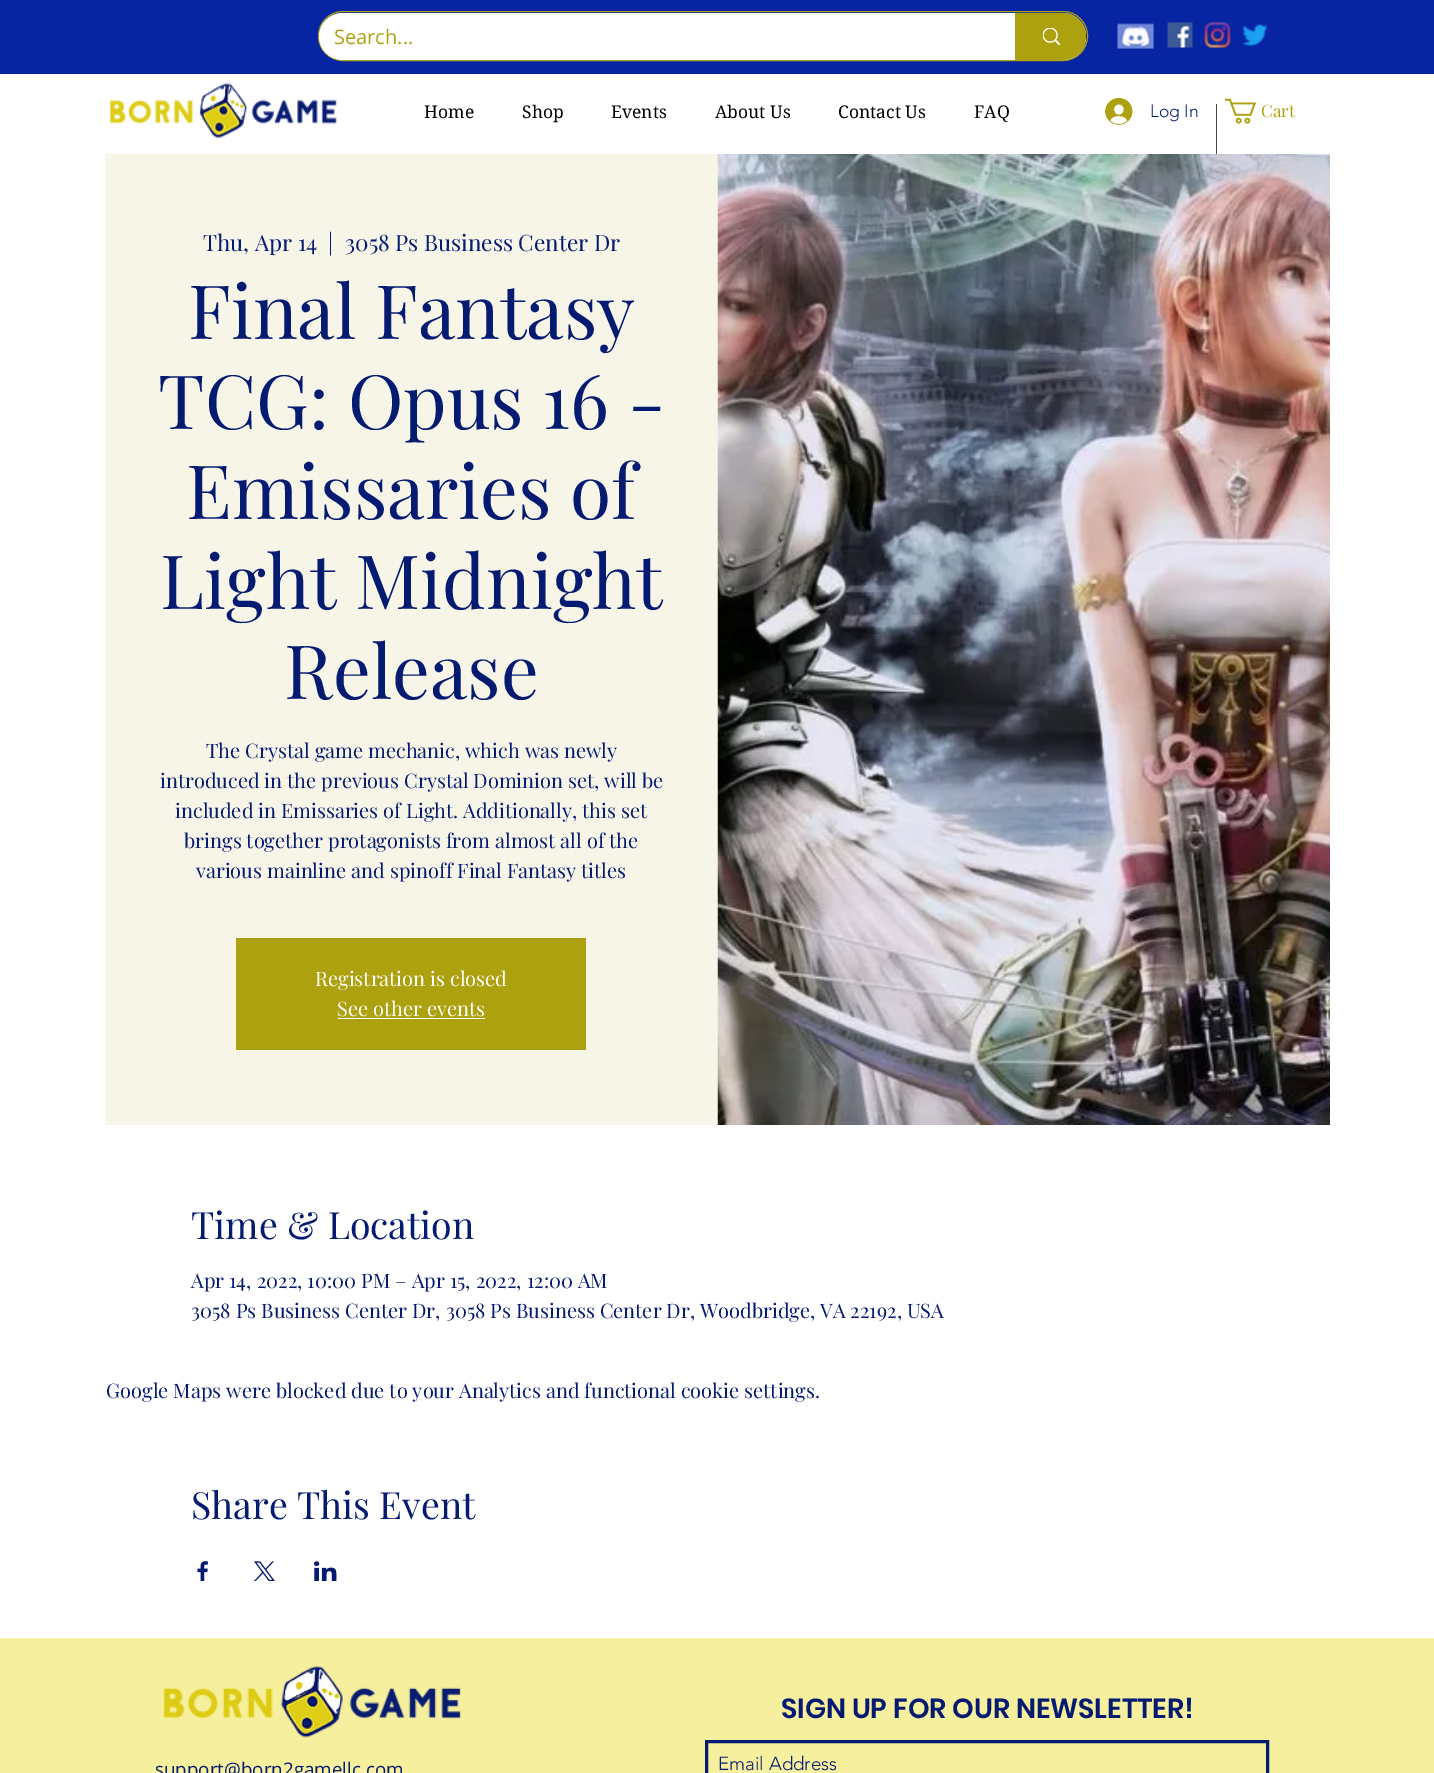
%!PS-Adobe-3.0
%%BoundingBox: 0 0 1434 1773
%%LanguageLevel: 3
%%Pages: 1
%%EndComments
%%BeginProlog
/setalpha { dup .setfillconstantalpha .setstrokeconstantalpha } def
/rrect { 5 dict begin { /r /h /w /y /x } { exch def } forall
  x r add y moveto x w add y 2 copy h add r arct x w add y h add x 1 index r arct
  x y h add x y r arct x y 2 copy exch w add exch r arct closepath end } def
/drawimage { 5 dict begin { /h /w /y /x /name } { exch def } forall
  gsave x y translate w h scale
  w h 8 [w 0 0 h 0 0] name (r) file false 3 colorimage grestore end } def
%%EndProlog
%%BeginSetup
<< /PageSize [1434 1773] /PageUsesTransparency true >> setpagedevice
%%EndSetup
%%Page: 1 1
0 .pushpdf14devicefilter
0 1773 translate 1 -1 scale
4 setmiterlimit
1 setgray
0 0 1434 1773 rectfill
0.027 0.145 0.635 setrgbcolor
0 0 1434 74 rectfill
0.678 0.631 0.063 setrgbcolor
318.5 11.5 769 49 24.5 rrect stroke
1 setgray
319 13 767 47 23.5 rrect fill
0.678 0.631 0.063 setrgbcolor
newpath 1015 13 moveto 1062.5 13 lineto 1075.5 13 1086 23.5 1086 36.5 curveto 1086 49.5 1075.5 60 1062.5 60 curveto 1015 60 lineto closepath fill
(images/1.raw) 1043 28 17 17 drawimage
(images/2.raw) 1117 23 37 26 drawimage
(images/3.raw) 1167 22 26 26 drawimage
(images/4.raw) 1204 22 27 26 drawimage
(images/5.raw) 1242 24 26 23 drawimage
(images/6.raw) 109 83 228 56 drawimage
(images/7.raw) 1105 98 28 27 drawimage
0.259 setgray
1216 104 1 50 rectfill
(images/8.raw) 1225 98 32 26 drawimage
(images/9.raw) 717 154 613 971 drawimage
0.1 setalpha
0.678 0.631 0.063 setrgbcolor
105 154 613 971 rectfill
1 setalpha
236 938 350 112 rectfill
1 setgray
338 1018 147 1 rectfill
(images/10.raw) 197 1561 11 20 drawimage
(images/11.raw) 254 1561 21 20 drawimage
(images/12.raw) 314 1561 23 20 drawimage
0.965 0.937 0.616 setrgbcolor
0 1639 1434 134 rectfill
0.969 0.945 0.675 setrgbcolor
0 1638 1434 1 rectfill
(images/13.raw) 163 1666 298 72 drawimage
0.02 0.102 0.443 setrgbcolor
3 setlinewidth
706.5 1741.5 561 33 rectstroke
/OpenSans-Regular [20 0 0 -20 0 0] selectfont
0.678 0.631 0.063 setrgbcolor
334 44 moveto (Search...) show
/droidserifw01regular-Regular [17.5 0 0 -17.5 0 0] selectfont
0 setgray
424 118 moveto (Home) show
522 118 moveto (Shop) show
611 118 moveto (Events) show
715 118 moveto (About Us) show
838 118 moveto (Contact Us) show
974 118 moveto (FAQ) show
/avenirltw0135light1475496-Light [17.5 0 0 -17.5 0 0] selectfont
0.02 0.102 0.443 setrgbcolor
1150 117 moveto (Log In) show
/PlayfairDisplay-Regular [17 0 0 -17 0 0] selectfont
0.678 0.631 0.063 setrgbcolor
1261 117 moveto (Cart) show
/PlayfairDisplay-Regular [22.5 0 0 -22.5 0 0] selectfont
0.02 0.102 0.443 setrgbcolor
203 251 moveto (Thu, Apr 14) show
328 251 moveto (|) show
345 251 moveto (3058 Ps Business Center Dr) show
/PlayfairDisplay-Regular [75 0 0 -75 0 0] selectfont
188 339 moveto (Final Fantasy) show
158 429 moveto (TCG: Opus 16 -) show
186 519 moveto (Emissaries of) show
160 609 moveto (Light Midnight) show
284 699 moveto (Release) show
/PlayfairDisplay-Regular [20 0 0 -20 0 0] selectfont
206 758 moveto (The Crystal game mechanic, which was newly) show
160 788 moveto (introduced in the previous Crystal Dominion set, will be) show
175 818 moveto (included in Emissaries of Light. Additionally, this set) show
184 848 moveto (brings together protagonists from almost all of the) show
196 878 moveto (various mainline and spinoff Final Fantasy titles) show
1 setgray
315 986 moveto (Registration is closed) show
337 1016 moveto (See other events) show
/PlayfairDisplay-Regular [37.5 0 0 -37.5 0 0] selectfont
0.02 0.102 0.443 setrgbcolor
191 1239 moveto (Time & Location) show
/PlayfairDisplay-Regular [20 0 0 -20 0 0] selectfont
191 1288 moveto (Apr 14, 2022, 10:00 PM – Apr 15, 2022, 12:00 AM) show
191 1318 moveto (3058 Ps Business Center Dr, 3058 Ps Business Center Dr, Woodbridge, VA 22192, USA) show
106 1398 moveto (Google Maps were blocked due to your Analytics and functional cookie settings.) show
/PlayfairDisplay-Regular [37.5 0 0 -37.5 0 0] selectfont
191 1519 moveto (Share This Event) show
/Poppins-SemiBold [27.5 0 0 -27.5 0 0] selectfont
781 1718 moveto (SIGN UP FOR OUR NEWSLETTER!) show
/avenirltw0135light1475496-Light [18.75 0 0 -18.75 0 0] selectfont
718 1770 moveto (Email Address) show
/OpenSans-Regular [18.75 0 0 -18.75 0 0] selectfont
155 1776 moveto (support@born2gamellc.com) show
.poppdf14devicefilter showpage
%%EOF
